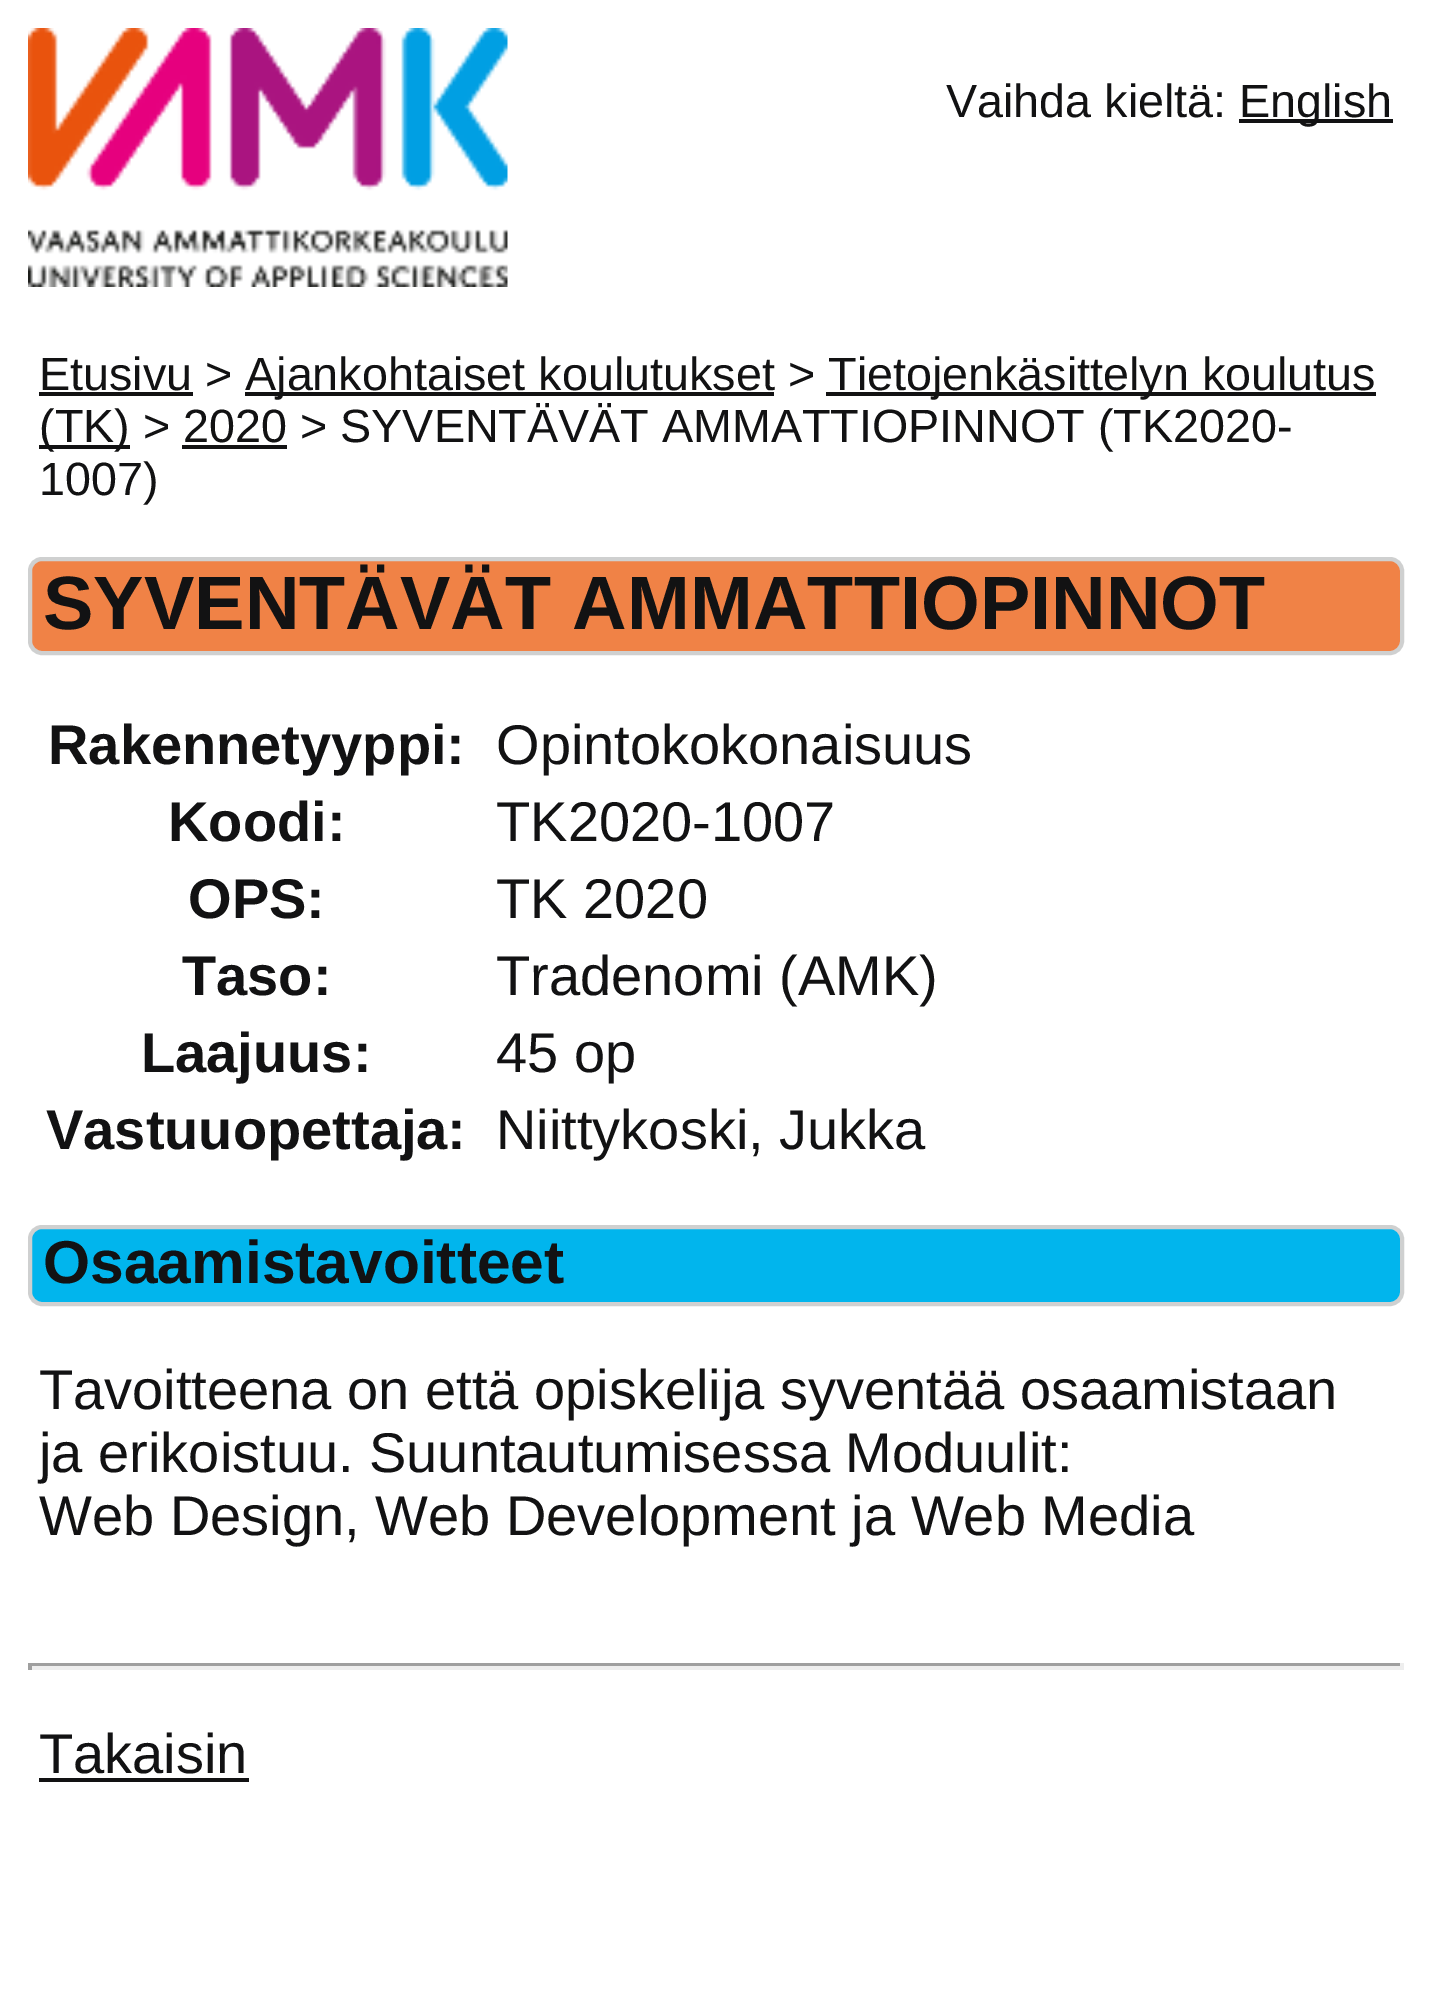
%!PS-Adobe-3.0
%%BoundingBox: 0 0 1431 1999
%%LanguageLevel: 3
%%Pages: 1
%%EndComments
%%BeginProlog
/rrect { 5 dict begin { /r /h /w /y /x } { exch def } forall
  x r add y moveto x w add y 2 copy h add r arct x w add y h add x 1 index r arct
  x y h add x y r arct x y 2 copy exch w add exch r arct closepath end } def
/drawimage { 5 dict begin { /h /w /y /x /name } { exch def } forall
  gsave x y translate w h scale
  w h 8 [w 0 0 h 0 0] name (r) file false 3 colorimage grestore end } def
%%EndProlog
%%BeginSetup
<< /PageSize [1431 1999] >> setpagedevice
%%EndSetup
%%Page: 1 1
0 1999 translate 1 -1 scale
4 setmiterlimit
1 setgray
0 0 1431 1999 rectfill
(images/1.raw) 28 28 480 259 drawimage
0.071 0.071 0.075 setrgbcolor
1239 119 154 4 rectfill
39 392 154 4 rectfill
245 392 529 4 rectfill
826 392 550 4 rectfill
39 445 91 4 rectfill
182 445 105 4 rectfill
0.941 0.51 0.275 setrgbcolor
30 559 1372 94 12 rrect gsave fill grestore
0.812 0.816 0.816 setrgbcolor
4 setlinewidth
stroke
0.004 0.71 0.929 setrgbcolor
30 1227 1372 77 12 rrect gsave fill grestore
0.812 0.816 0.816 setrgbcolor
stroke
0.624 setgray
28 1663 1376 3 rectfill
0.933 setgray
1400 1663 4 7 rectfill
28 1666 1376 4 rectfill
0.624 setgray
28 1663 4 7 rectfill
0.071 0.071 0.075 setrgbcolor
39 1778 210 4 rectfill
/LiberationSans-Regular [46.7 0 0 -46.7 0 0] selectfont
946 117 moveto (Vaihda kieltä:) show
1239 117 moveto (English) show
39 390 moveto (Etusivu >) show
245 390 moveto (Ajankohtaiset koulutukset >) show
828 390 moveto (Tietojenkäsittelyn koulutus) show
39 442 moveto (\(TK\) > 2020 > SYVENTÄVÄT AMMATTIOPINNOT \(TK2020-) show
39 495 moveto (1007\)) show
/LiberationSans-Bold [75.6 0 0 -75.6 0 0] selectfont
43 629 moveto (SYVENTÄVÄT AMMATTIOPINNOT) show
/LiberationSans-Bold [56 0 0 -56 0 0] selectfont
48 764 moveto (Rakennetyyppi:) show
/LiberationSans-Regular [56 0 0 -56 0 0] selectfont
496 764 moveto (Opintokokonaisuus) show
/LiberationSans-Bold [56 0 0 -56 0 0] selectfont
168 841 moveto (Koodi:) show
/LiberationSans-Regular [56 0 0 -56 0 0] selectfont
496 841 moveto (TK2020-1007) show
/LiberationSans-Bold [56 0 0 -56 0 0] selectfont
188 918 moveto (OPS:) show
/LiberationSans-Regular [56 0 0 -56 0 0] selectfont
496 918 moveto (TK 2020) show
/LiberationSans-Bold [56 0 0 -56 0 0] selectfont
182 995 moveto (Taso:) show
/LiberationSans-Regular [56 0 0 -56 0 0] selectfont
496 995 moveto (Tradenomi \(AMK\)) show
/LiberationSans-Bold [56 0 0 -56 0 0] selectfont
141 1072 moveto (Laajuus:) show
/LiberationSans-Regular [56 0 0 -56 0 0] selectfont
496 1072 moveto (45 op) show
/LiberationSans-Bold [56 0 0 -56 0 0] selectfont
46 1149 moveto (Vastuuopettaja:) show
/LiberationSans-Regular [56 0 0 -56 0 0] selectfont
496 1149 moveto (Niittykoski, Jukka) show
/LiberationSans-Bold [60.5 0 0 -60.5 0 0] selectfont
43 1283 moveto (Osaamistavoitteet) show
/LiberationSans-Regular [56 0 0 -56 0 0] selectfont
39 1409 moveto (Tavoitteena on että opiskelija syventää osaamistaan) show
39 1472 moveto (ja erikoistuu. Suuntautumisessa Moduulit:) show
39 1535 moveto (Web Design, Web Development ja Web Media) show
39 1773 moveto (Takaisin) show
showpage
%%EOF
